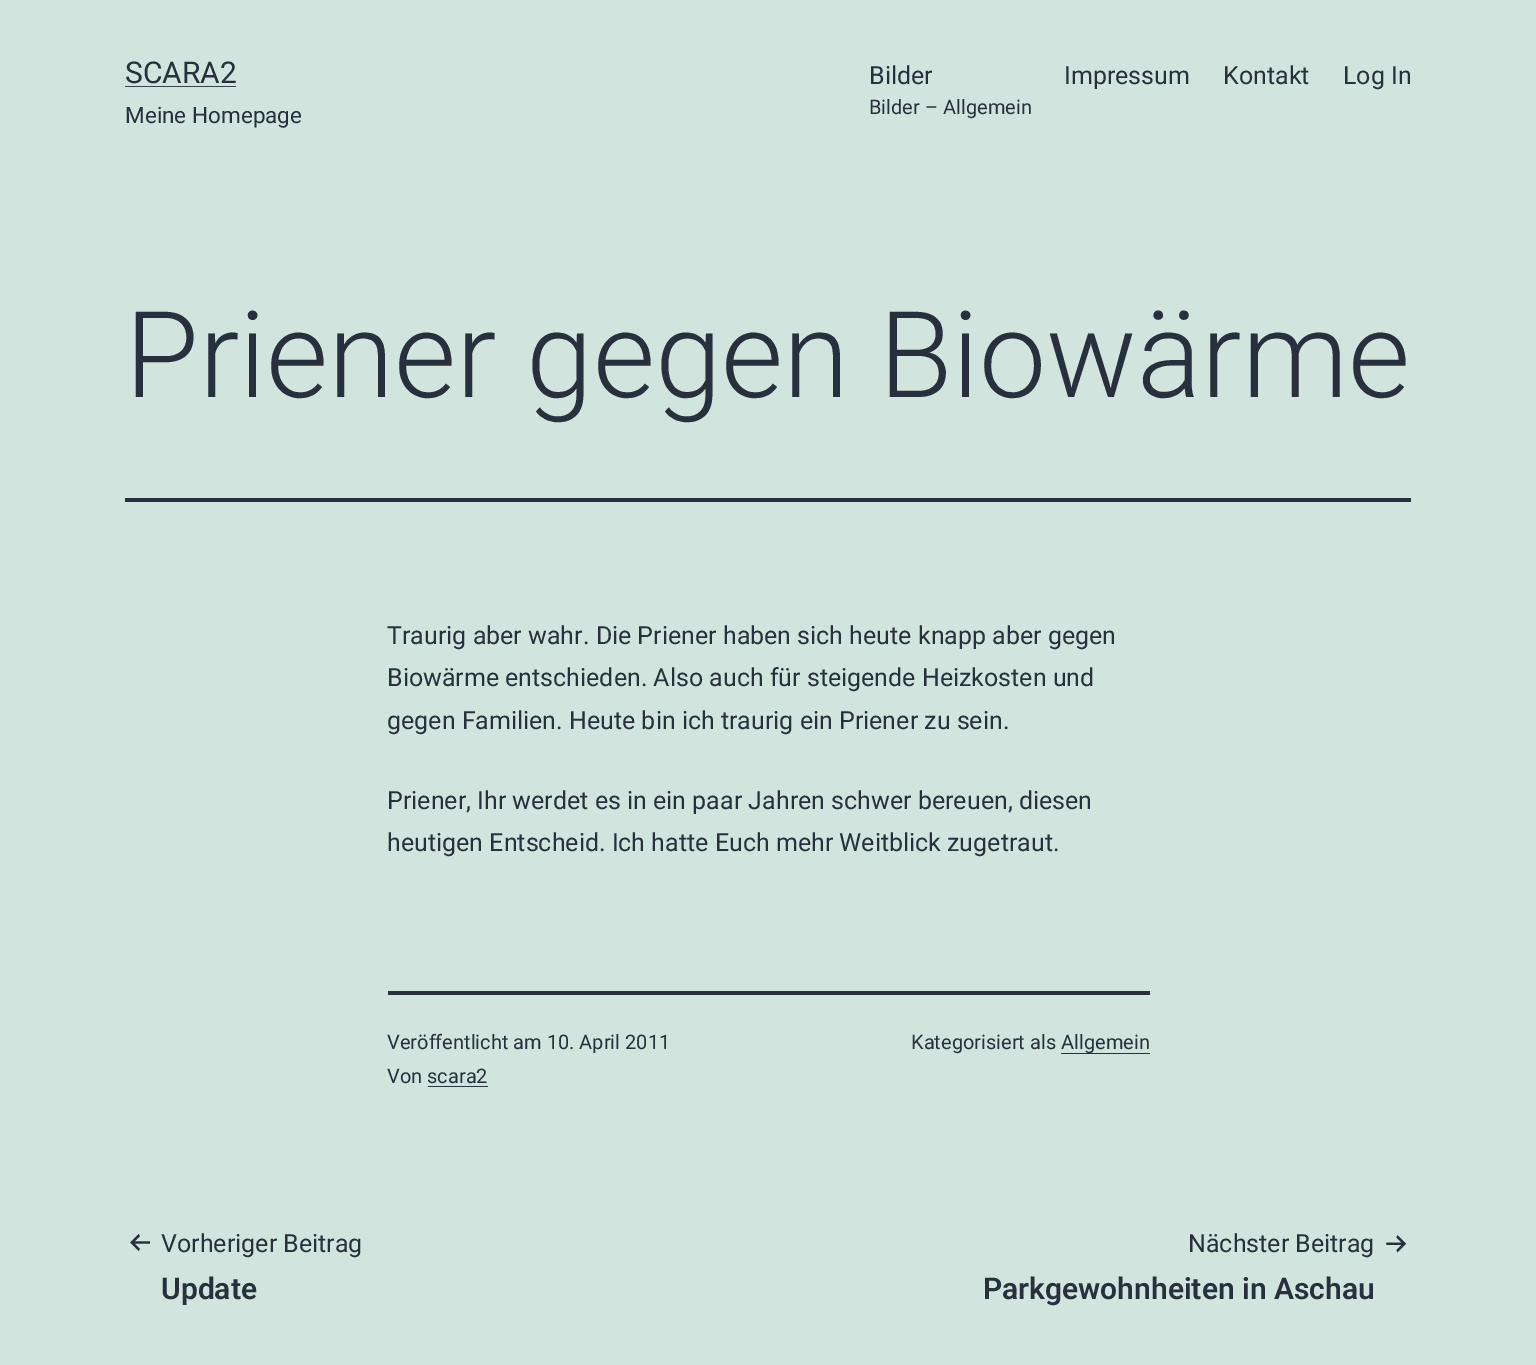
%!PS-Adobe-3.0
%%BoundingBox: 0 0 1536 1365
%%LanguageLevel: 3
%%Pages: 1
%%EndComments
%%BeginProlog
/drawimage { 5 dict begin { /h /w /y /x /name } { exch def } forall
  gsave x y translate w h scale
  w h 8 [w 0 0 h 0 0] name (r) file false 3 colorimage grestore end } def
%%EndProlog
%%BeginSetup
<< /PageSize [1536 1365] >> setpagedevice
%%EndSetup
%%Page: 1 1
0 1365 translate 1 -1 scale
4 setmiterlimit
0.82 0.894 0.867 setrgbcolor
0 0 1536 1365 rectfill
0.224 0.255 0.302 setrgbcolor
125 86 111 1 rectfill
0.157 0.188 0.239 setrgbcolor
125 498 1286 4 rectfill
388 991 762 4 rectfill
428 1086 60 1 rectfill
1061 1053 89 1 rectfill
(images/1.raw) 130 1233 20 19 drawimage
(images/2.raw) 1386 1235 21 18 drawimage
/Roboto-Regular [30 0 0 -30 0 0] selectfont
125 83 moveto (SCARA2) show
/Roboto-Regular [22.5 0 0 -22.5 0 0] selectfont
125 123 moveto (Meine Homepage) show
/Roboto-Regular [25 0 0 -25 0 0] selectfont
869 84 moveto (Bilder) show
/Roboto-Regular [20 0 0 -20 0 0] selectfont
869 114 moveto (Bilder – Allgemein) show
/Roboto-Regular [25 0 0 -25 0 0] selectfont
1064 84 moveto (Impressum) show
1223 84 moveto (Kontakt) show
1343 84 moveto (Log In) show
/Roboto-Light [120 0 0 -120 0 0] selectfont
125 397 moveto (Priener gegen Biowärme) show
/Roboto-Regular [25 0 0 -25 0 0] selectfont
387 644 moveto (Traurig aber wahr. Die Priener haben sich heute knapp aber gegen) show
387 686 moveto (Biowärme entschieden. Also auch für steigende Heizkosten und) show
387 729 moveto (gegen Familien. Heute bin ich traurig ein Priener zu sein.) show
387 809 moveto (Priener, Ihr werdet es in ein paar Jahren schwer bereuen, diesen) show
387 851 moveto (heutigen Entscheid. Ich hatte Euch mehr Weitblick zugetraut.) show
/Roboto-Regular [20 0 0 -20 0 0] selectfont
387 1049 moveto (Veröffentlicht am 10. April 2011) show
387 1083 moveto (Von scara2) show
911 1049 moveto (Kategorisiert als) show
1061 1049 moveto (Allgemein) show
/Roboto-Regular [25 0 0 -25 0 0] selectfont
161 1252 moveto (Vorheriger Beitrag) show
/Roboto-SemiBold [30 0 0 -30 0 0] selectfont
161 1299 moveto (Update) show
/Roboto-Regular [25 0 0 -25 0 0] selectfont
1188 1252 moveto (Nächster Beitrag) show
/Roboto-SemiBold [30 0 0 -30 0 0] selectfont
983 1299 moveto (Parkgewohnheiten in Aschau) show
showpage
%%EOF
